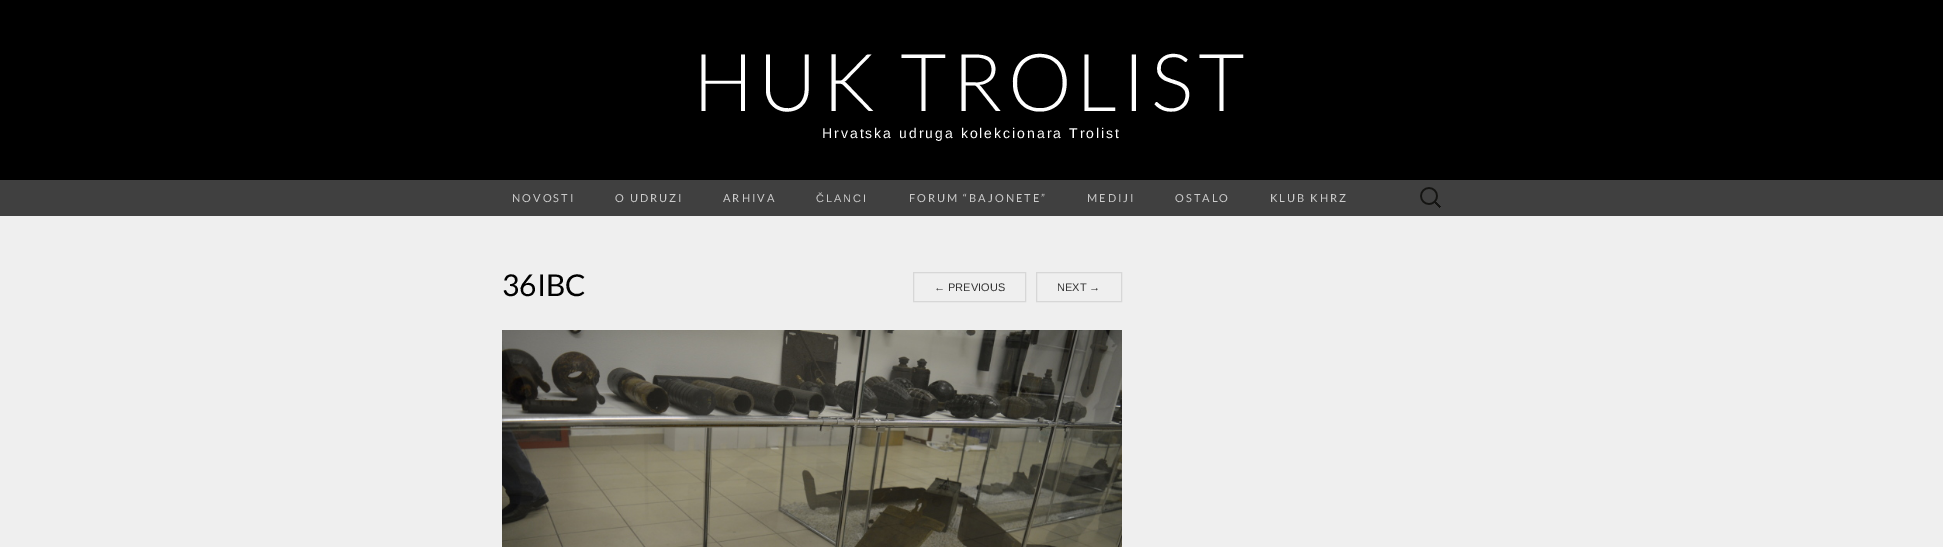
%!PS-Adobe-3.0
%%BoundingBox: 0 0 1943 547
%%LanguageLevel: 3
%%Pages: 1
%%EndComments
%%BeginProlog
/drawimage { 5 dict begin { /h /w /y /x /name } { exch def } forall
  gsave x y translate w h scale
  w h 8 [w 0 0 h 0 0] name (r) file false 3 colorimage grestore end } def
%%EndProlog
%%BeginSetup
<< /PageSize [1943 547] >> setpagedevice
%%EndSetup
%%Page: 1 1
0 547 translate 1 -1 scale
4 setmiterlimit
0.937 setgray
0 0 1943 547 rectfill
0 setgray
0 0 1943 180 rectfill
0.251 setgray
0 180 1943 36 rectfill
(images/1.raw) 1420 187 21 21 drawimage
0.843 setgray
913.5 272.5 112 29 rectstroke
1036.5 272.5 85 29 rectstroke
(images/2.raw) 502 330 620 217 drawimage
/Lato-Light [80 0 0 -80 0 0] selectfont
1 setgray
693 111 moveto 5 0 (HUK TROLIST) ashow
/LiberationSans-Regular [14 0 0 -14 0 0] selectfont
822 138 moveto 2 0 (Hrvatska udruga kolekcionara Trolist) ashow
/Lato-Regular [11 0 0 -11 0 0] selectfont
0.8 setgray
512 202 moveto 2 0 (NOVOSTI) ashow
615 202 moveto 2 0 (O UDRUZI) ashow
723 202 moveto 2 0 (ARHIVA) ashow
/LiberationSans-Regular [11 0 0 -11 0 0] selectfont
816 202 moveto 2 0 (ČLANCI) ashow
/Lato-Regular [11 0 0 -11 0 0] selectfont
909 202 moveto 2 0 (FORUM “BAJONETE”) ashow
1087 202 moveto 2 0 (MEDIJI) ashow
1175 202 moveto 2 0 (OSTALO) ashow
1270 202 moveto 2 0 (KLUB KHRZ) ashow
/Lato-Regular [30 0 0 -30 0 0] selectfont
0 setgray
502 296 moveto (36IBC) show
/LiberationSans-Regular [11 0 0 -11 0 0] selectfont
0.2 setgray
934 291 moveto (← PREVIOUS) show
1057 291 moveto (NEXT →) show
showpage
%%EOF
